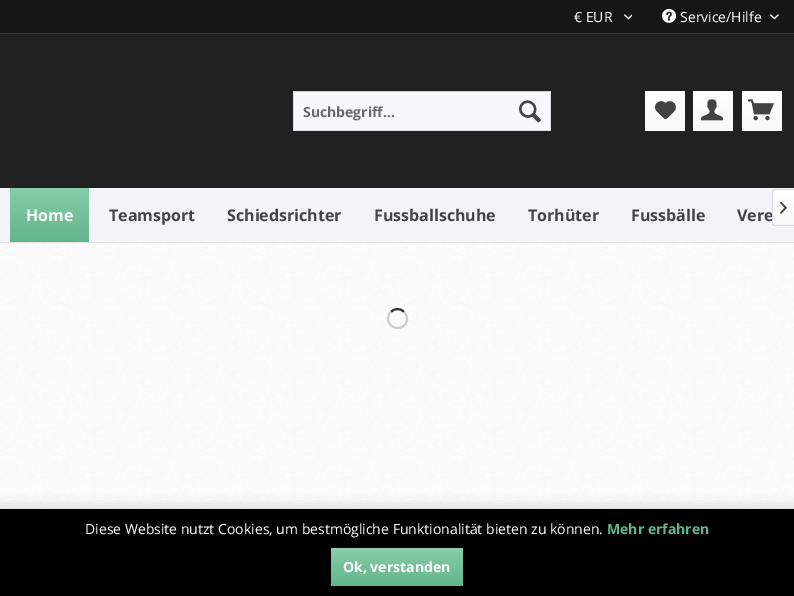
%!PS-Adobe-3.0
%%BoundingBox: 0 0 794 596
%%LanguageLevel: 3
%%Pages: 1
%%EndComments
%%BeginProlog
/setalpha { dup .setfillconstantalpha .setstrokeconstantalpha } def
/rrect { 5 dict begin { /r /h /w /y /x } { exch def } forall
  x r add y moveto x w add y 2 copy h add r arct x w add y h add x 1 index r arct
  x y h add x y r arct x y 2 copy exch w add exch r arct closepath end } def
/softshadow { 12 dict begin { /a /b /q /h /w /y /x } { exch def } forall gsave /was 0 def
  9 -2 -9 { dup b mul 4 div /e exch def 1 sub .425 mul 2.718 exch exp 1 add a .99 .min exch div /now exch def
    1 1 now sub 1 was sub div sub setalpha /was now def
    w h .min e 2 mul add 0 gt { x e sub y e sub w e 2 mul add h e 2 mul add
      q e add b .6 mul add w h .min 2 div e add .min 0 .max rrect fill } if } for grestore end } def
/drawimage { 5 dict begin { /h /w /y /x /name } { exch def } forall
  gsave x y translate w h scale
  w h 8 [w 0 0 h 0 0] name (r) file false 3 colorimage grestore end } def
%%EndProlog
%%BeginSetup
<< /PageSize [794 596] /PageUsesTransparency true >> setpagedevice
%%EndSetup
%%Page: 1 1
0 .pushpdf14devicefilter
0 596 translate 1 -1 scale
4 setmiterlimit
1 setgray
0 0 794 596 rectfill
(images/1.raw) 0 243 794 266 drawimage
0.129 setgray
0 34 794 154 rectfill
0.09 0.086 0.086 setrgbcolor
0 0 794 33 rectfill
0.22 setgray
0 33 794 1 rectfill
(images/2.raw) 624 14 8 6 drawimage
(images/3.raw) 662 8 14 15 drawimage
(images/4.raw) 770 14 9 6 drawimage
0.973 0.973 0.98 setrgbcolor
294 92 256 38 rectfill
0.796 0.796 0.859 setrgbcolor
293 91 258 1 rectfill
0.855 0.855 0.898 setrgbcolor
550 91 1 40 rectfill
293 130 258 1 rectfill
293 91 1 40 rectfill
(images/5.raw) 519 100 22 23 drawimage
gsave newpath 645 91 moveto 685 91 lineto 685 131 lineto 645 131 lineto closepath clip newpath
<< /ShadingType 2 /ColorSpace /DeviceRGB /Coords [665 91 665 131] /Extend [true true] /Function << /FunctionType 2 /Domain [0 1] /C0 [1 1 1] /C1 [0.973 0.973 0.98] /N 1 >> >> shfill grestore
(images/6.raw) 655 101 21 19 drawimage
gsave newpath 693 91 moveto 733 91 lineto 733 131 lineto 693 131 lineto closepath clip newpath
<< /ShadingType 2 /ColorSpace /DeviceRGB /Coords [713 91 713 131] /Extend [true true] /Function << /FunctionType 2 /Domain [0 1] /C0 [1 1 1] /C1 [0.973 0.973 0.98] /N 1 >> >> shfill grestore
(images/7.raw) 701 99 22 22 drawimage
gsave newpath 742 91 moveto 782 91 lineto 782 131 lineto 742 131 lineto closepath clip newpath
<< /ShadingType 2 /ColorSpace /DeviceRGB /Coords [762 91 762 131] /Extend [true true] /Function << /FunctionType 2 /Domain [0 1] /C0 [1 1 1] /C1 [0.973 0.973 0.98] /N 1 >> >> shfill grestore
(images/8.raw) 748 99 26 22 drawimage
0.953 0.957 0.969 setrgbcolor
0 188 794 54 rectfill
0.878 0.878 0.882 setrgbcolor
0 242 794 1 rectfill
gsave newpath 10 188 moveto 89 188 lineto 89 242 lineto 10 242 lineto closepath clip newpath
<< /ShadingType 2 /ColorSpace /DeviceRGB /Coords [50 188 50 242] /Extend [true true] /Function << /FunctionType 2 /Domain [0 1] /C0 [0.529 0.804 0.663] /C1 [0.384 0.71 0.541] /N 1 >> >> shfill grestore
gsave newpath 775 190 moveto 794 190 lineto 794 225 lineto 775 225 lineto 774 225 773 224 773 223 curveto 773 192 lineto 773 191 774 190 775 190 curveto closepath clip newpath
<< /ShadingType 2 /ColorSpace /DeviceRGB /Coords [784 190 784 225] /Extend [true true] /Function << /FunctionType 2 /Domain [0 1] /C0 [1 1 1] /C1 [0.973 0.973 0.98] /N 1 >> >> shfill grestore
0.2 setgray
2 setlinewidth
newpath 391 312 moveto 394.5 308 400.5 308 404 312 curveto stroke
0.8 setgray
newpath 404 312 moveto 406.5 314 407.5 317.5 407 320.5 curveto 404.5 331.5 388 330 388 318.5 curveto 388 316 389 313.5 391 312 curveto stroke
0 setgray
-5 504 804 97 0 5 0.1 softshadow
0 509 794 87 rectfill
gsave 331 548 132 38 3 rrect clip newpath
<< /ShadingType 2 /ColorSpace /DeviceRGB /Coords [397 548 397 586] /Extend [true true] /Function << /FunctionType 2 /Domain [0 1] /C0 [0.529 0.804 0.663] /C1 [0.384 0.71 0.541] /N 1 >> >> shfill grestore
/OpenSans-Regular [14 0 0 -14 0 0] selectfont
1 setgray
574 22 moveto (€ EUR) show
680 22 moveto (Service/Hilfe) show
/OpenSans-Bold [14 0 0 -14 0 0] selectfont
0.412 setgray
303 117 moveto (Suchbegriff...) show
/OpenSans-Bold [16 0 0 -16 0 0] selectfont
1 setgray
26 221 moveto (Home) show
0.263 setgray
109 221 moveto (Teamsport) show
227 221 moveto (Schiedsrichter) show
374 221 moveto (Fussballschuhe) show
528 221 moveto (Torhüter) show
631 221 moveto (Fussbälle) show
737 221 moveto (Vere) show
0.855 0.855 0.898 setrgbcolor
newpath 775 189 moveto 794 189 lineto 794 226 lineto 775 226 lineto 773.5 226 772 224.5 772 223 curveto 772 192 lineto 772 190.5 773.5 189 775 189 curveto closepath 775 190 moveto 794 190 lineto 794 225 lineto 775 225 lineto 774 225 773 224 773 223 curveto 773 192 lineto 773 191 774 190 775 190 curveto closepath eofill
(images/9.raw) 780 201 7 13 drawimage
/OpenSans-Regular [14 0 0 -14 0 0] selectfont
1 setgray
85 534 moveto (Diese Website nutzt Cookies, um bestmögliche Funktionalität bieten zu können.) show
/OpenSans-Bold [14 0 0 -14 0 0] selectfont
0.384 0.71 0.541 setrgbcolor
607 534 moveto (Mehr erfahren) show
1 setgray
343 572 moveto (Ok, verstanden) show
.poppdf14devicefilter showpage
%%EOF
